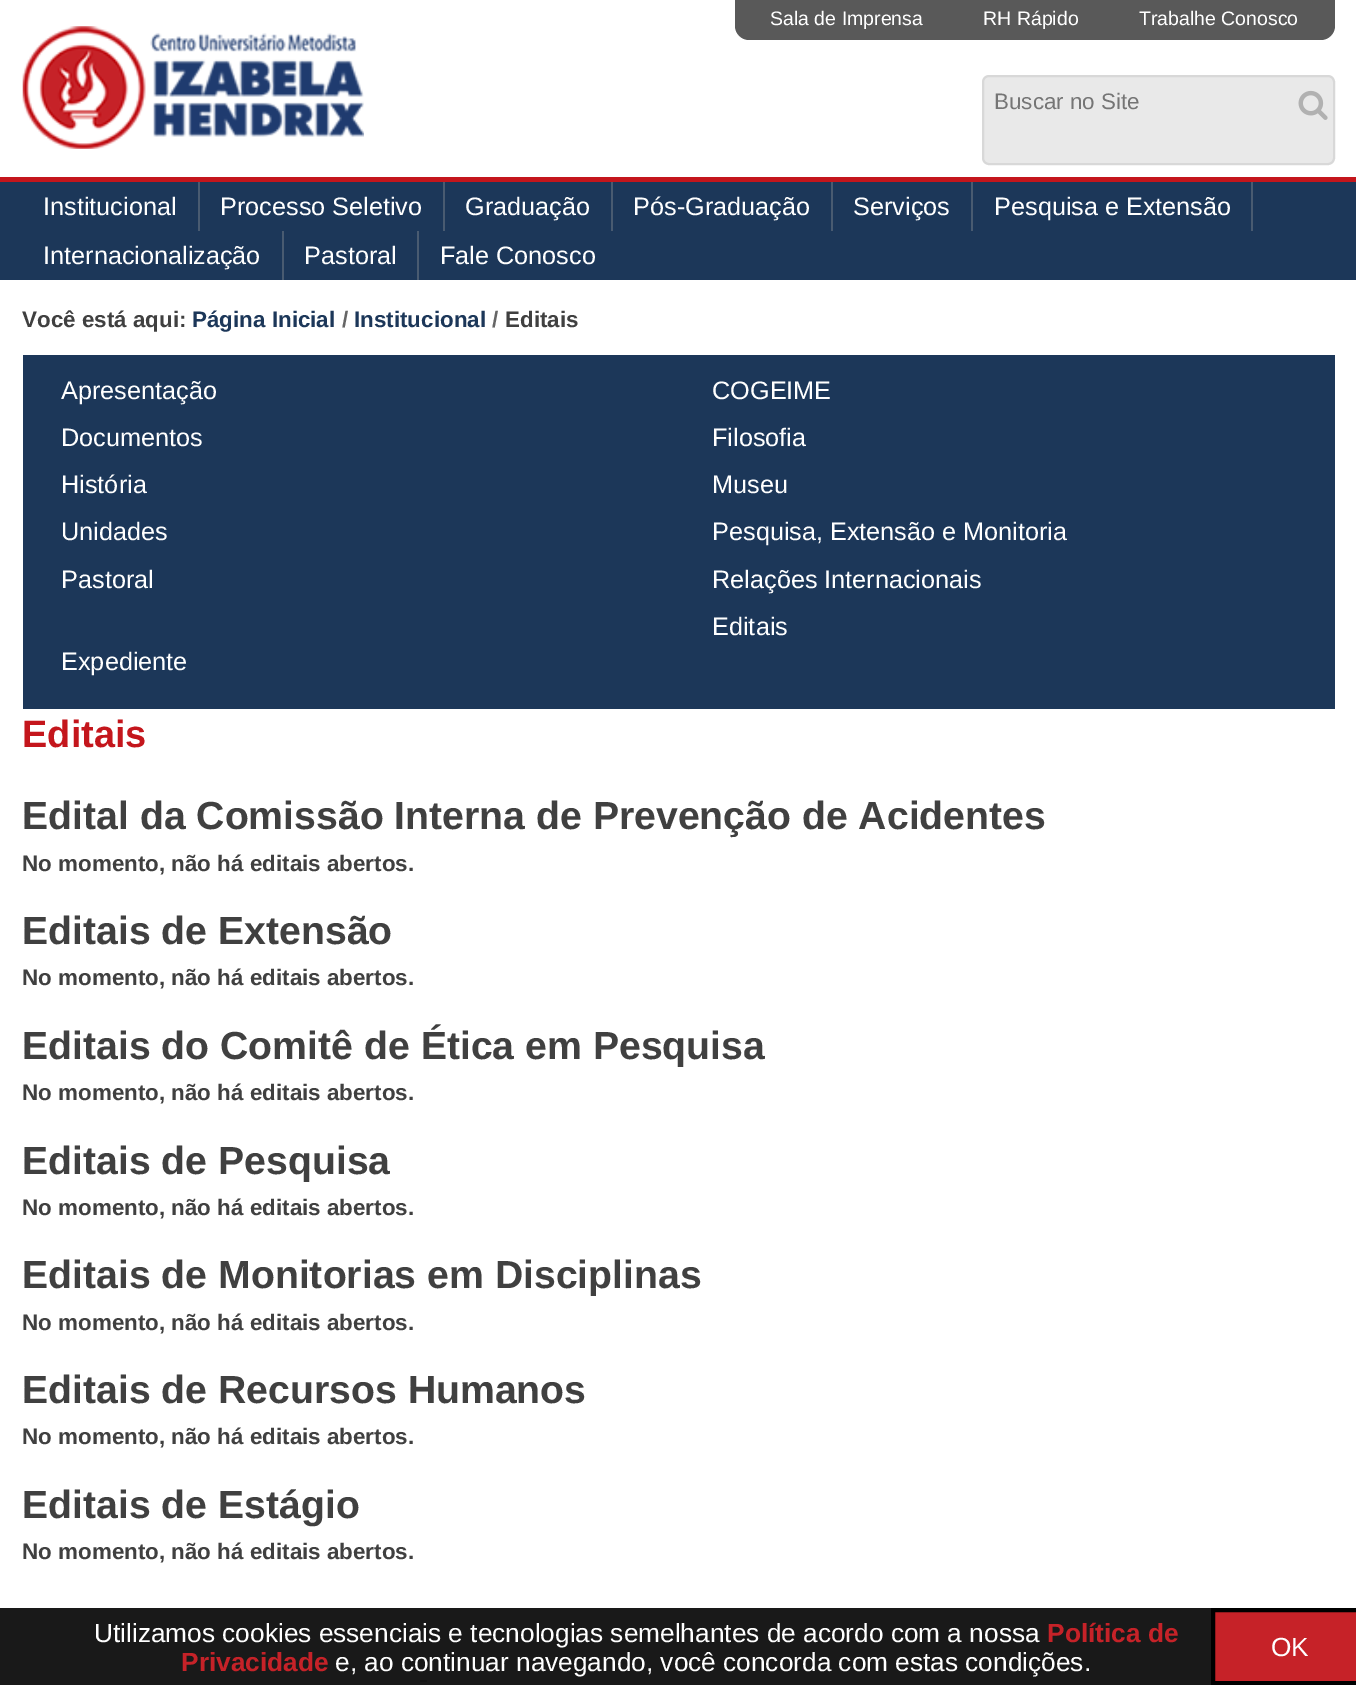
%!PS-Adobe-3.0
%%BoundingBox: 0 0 1356 1685
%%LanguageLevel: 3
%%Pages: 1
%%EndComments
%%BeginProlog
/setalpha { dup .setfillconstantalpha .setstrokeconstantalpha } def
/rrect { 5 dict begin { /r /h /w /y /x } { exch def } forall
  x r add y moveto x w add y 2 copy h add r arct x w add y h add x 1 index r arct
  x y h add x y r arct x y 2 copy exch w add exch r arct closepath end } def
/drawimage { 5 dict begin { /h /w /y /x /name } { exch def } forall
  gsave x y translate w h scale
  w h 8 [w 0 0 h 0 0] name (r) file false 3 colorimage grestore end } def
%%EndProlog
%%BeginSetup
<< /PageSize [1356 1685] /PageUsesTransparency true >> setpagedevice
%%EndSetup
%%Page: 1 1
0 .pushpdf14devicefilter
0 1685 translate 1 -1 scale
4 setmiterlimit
1 setgray
0 0 1356 1685 rectfill
0.349 setgray
newpath 735 0 moveto 1335 0 lineto 1335 26 lineto 1335 33.5 1328.5 40 1321 40 curveto 749 40 lineto 741.5 40 735 33.5 735 26 curveto closepath fill
(images/1.raw) 22 26 342 123 drawimage
0.914 setgray
983 76 351 88 6 rrect gsave fill grestore
0.847 setgray
2 setlinewidth
stroke
(images/2.raw) 1298 90 30 30 drawimage
0.11 0.216 0.349 setrgbcolor
0 182 1356 98 rectfill
0.769 0.086 0.11 setrgbcolor
0 177 1356 5 rectfill
0.286 0.357 0.443 setrgbcolor
198 182 2 49 rectfill
443 182 2 49 rectfill
611 182 2 49 rectfill
831 182 2 49 rectfill
971 182 2 49 rectfill
1251 182 2 49 rectfill
282 231 2 49 rectfill
417 231 2 49 rectfill
0.11 0.216 0.349 setrgbcolor
23 355 1312 354 rectfill
0.8 setgray
420 1680 7 2 rectfill
0.9 setalpha
0 setgray
0 1608 1211 77 rectfill
1 setalpha
0.776 0.133 0.157 setrgbcolor
newpath 1213 1610 moveto 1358 1610 lineto 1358 1683 lineto 1213 1683 lineto closepath gsave fill grestore
0 setgray
4 setlinewidth
stroke
/LiberationSans-Regular [19.5 0 0 -19.5 0 0] selectfont
1 setgray
770 25 moveto (Sala de Imprensa) show
983 25 moveto (RH Rápido) show
1139 25 moveto (Trabalhe Conosco) show
/LiberationSans-Regular [22.4 0 0 -22.4 0 0] selectfont
0.459 setgray
994 109 moveto (Buscar no Site) show
/LiberationSans-Regular [25.25 0 0 -25.25 0 0] selectfont
1 setgray
43 215 moveto (Institucional) show
220 215 moveto (Processo Seletivo) show
465 215 moveto (Graduação) show
633 215 moveto (Pós-Graduação) show
853 215 moveto (Serviços) show
994 215 moveto (Pesquisa e Extensão) show
43 264 moveto (Internacionalização) show
304 264 moveto (Pastoral) show
440 264 moveto (Fale Conosco) show
/LiberationSans-Bold [22.4 0 0 -22.4 0 0] selectfont
0.251 setgray
22 327 moveto (Você está aqui:) show
0.11 0.216 0.349 setrgbcolor
192 327 moveto (Página Inicial) show
0.4 setgray
342 327 moveto (/) show
0.11 0.216 0.349 setrgbcolor
354 327 moveto (Institucional) show
0.4 setgray
492 327 moveto (/) show
0.251 setgray
505 327 moveto (Editais) show
/LiberationSans-Regular [25.25 0 0 -25.25 0 0] selectfont
1 setgray
61 399 moveto (Apresentação) show
712 399 moveto (COGEIME) show
61 446 moveto (Documentos) show
712 446 moveto (Filosofia) show
61 493 moveto (História) show
712 493 moveto (Museu) show
61 540 moveto (Unidades) show
712 540 moveto (Pesquisa, Extensão e Monitoria) show
61 588 moveto (Pastoral) show
712 588 moveto (Relações Internacionais) show
712 635 moveto (Editais) show
61 670 moveto (Expediente) show
/LiberationSans-Bold [38 0 0 -38 0 0] selectfont
0.769 0.086 0.11 setrgbcolor
22 747 moveto (Editais) show
/LiberationSans-Bold [39.2 0 0 -39.2 0 0] selectfont
0.251 setgray
22 829 moveto (Edital da Comissão Interna de Prevenção de Acidentes) show
/LiberationSans-Bold [22.4 0 0 -22.4 0 0] selectfont
22 871 moveto (No momento, não há editais abertos.) show
/LiberationSans-Bold [39.2 0 0 -39.2 0 0] selectfont
22 944 moveto (Editais de Extensão) show
/LiberationSans-Bold [22.4 0 0 -22.4 0 0] selectfont
22 985 moveto (No momento, não há editais abertos.) show
/LiberationSans-Bold [39.2 0 0 -39.2 0 0] selectfont
22 1059 moveto (Editais do Comitê de Ética em Pesquisa) show
/LiberationSans-Bold [22.4 0 0 -22.4 0 0] selectfont
22 1100 moveto (No momento, não há editais abertos.) show
/LiberationSans-Bold [39.2 0 0 -39.2 0 0] selectfont
22 1174 moveto (Editais de Pesquisa) show
/LiberationSans-Bold [22.4 0 0 -22.4 0 0] selectfont
22 1215 moveto (No momento, não há editais abertos.) show
/LiberationSans-Bold [39.2 0 0 -39.2 0 0] selectfont
22 1288 moveto (Editais de Monitorias em Disciplinas) show
/LiberationSans-Bold [22.4 0 0 -22.4 0 0] selectfont
22 1330 moveto (No momento, não há editais abertos.) show
/LiberationSans-Bold [39.2 0 0 -39.2 0 0] selectfont
22 1403 moveto (Editais de Recursos Humanos) show
/LiberationSans-Bold [22.4 0 0 -22.4 0 0] selectfont
22 1444 moveto (No momento, não há editais abertos.) show
/LiberationSans-Bold [39.2 0 0 -39.2 0 0] selectfont
22 1518 moveto (Editais de Estágio) show
/LiberationSans-Bold [22.4 0 0 -22.4 0 0] selectfont
22 1559 moveto (No momento, não há editais abertos.) show
/LiberationSans-Regular [26.25 0 0 -26.25 0 0] selectfont
1 setgray
94 1642 moveto (Utilizamos cookies essenciais e tecnologias semelhantes de acordo com a nossa) show
/LiberationSans-Bold [26.25 0 0 -26.25 0 0] selectfont
0.776 0.133 0.157 setrgbcolor
1047 1642 moveto (Política de) show
181 1671 moveto (Privacidade) show
/LiberationSans-Regular [26.25 0 0 -26.25 0 0] selectfont
1 setgray
335 1671 moveto (e, ao continuar navegando, você concorda com estas condições.) show
1271 1656 moveto (OK) show
.poppdf14devicefilter showpage
%%EOF
